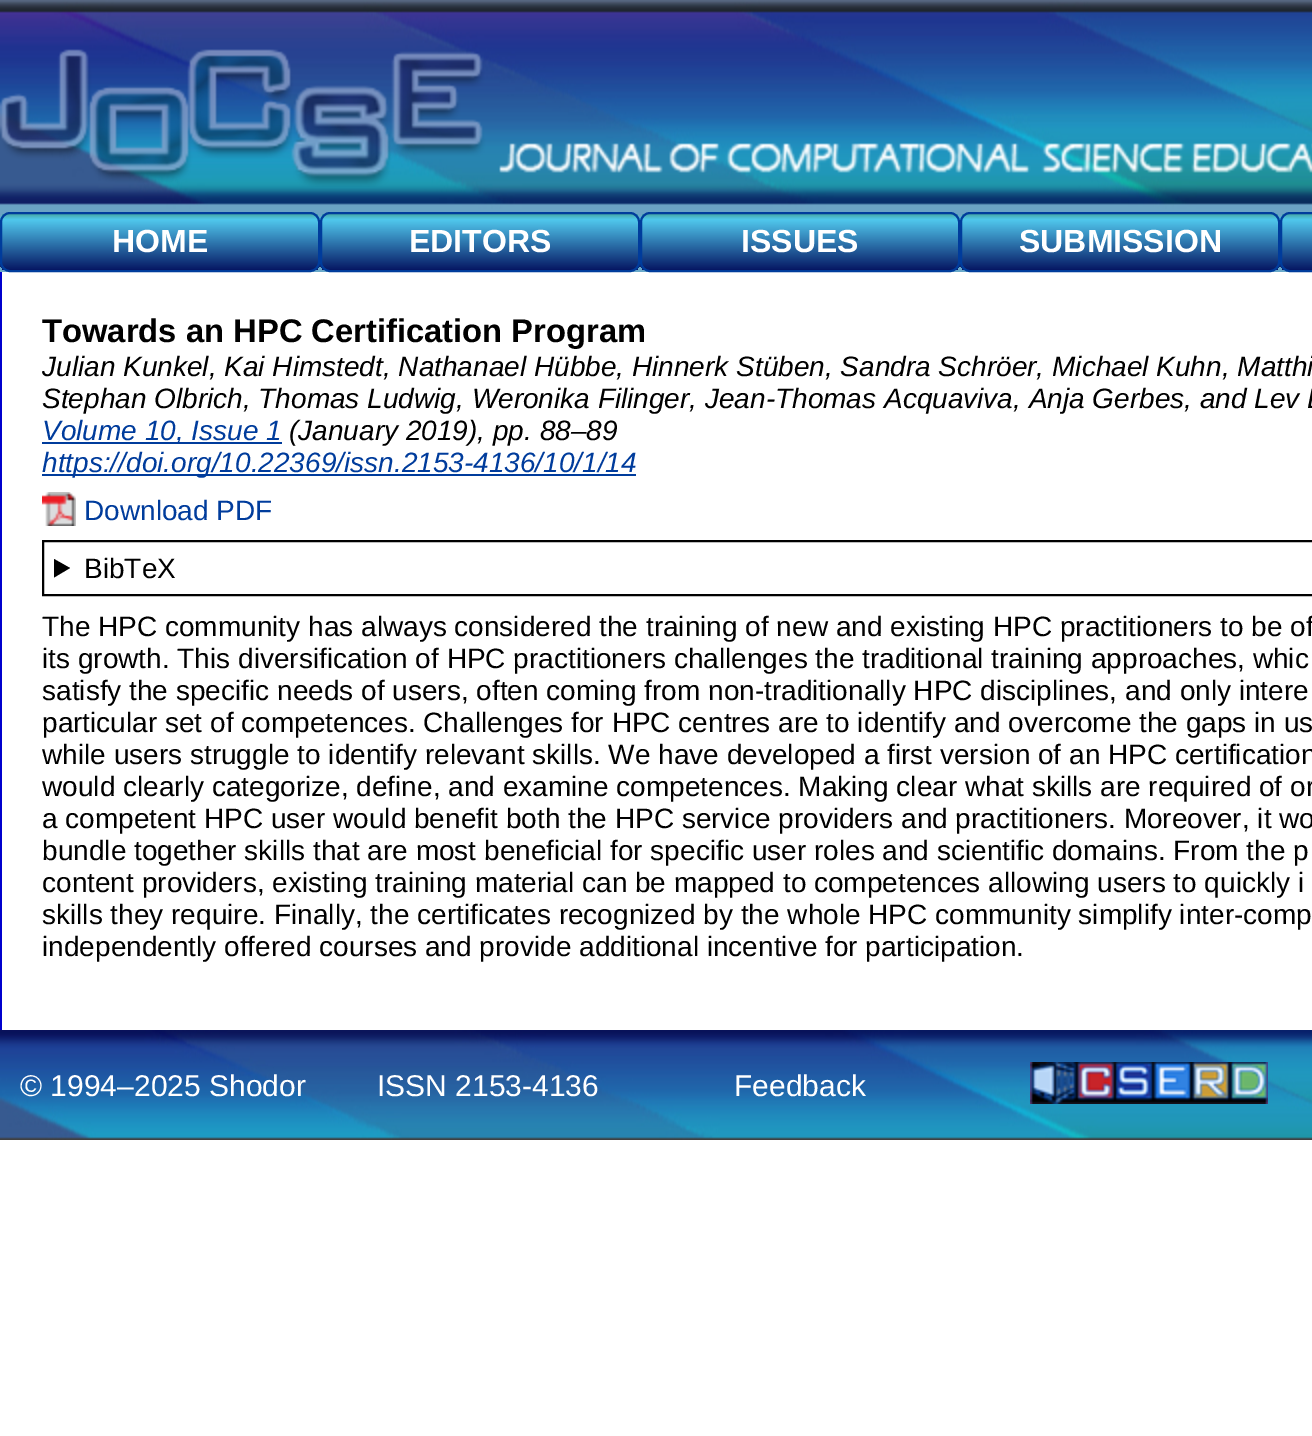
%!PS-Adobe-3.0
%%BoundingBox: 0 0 1312 1436
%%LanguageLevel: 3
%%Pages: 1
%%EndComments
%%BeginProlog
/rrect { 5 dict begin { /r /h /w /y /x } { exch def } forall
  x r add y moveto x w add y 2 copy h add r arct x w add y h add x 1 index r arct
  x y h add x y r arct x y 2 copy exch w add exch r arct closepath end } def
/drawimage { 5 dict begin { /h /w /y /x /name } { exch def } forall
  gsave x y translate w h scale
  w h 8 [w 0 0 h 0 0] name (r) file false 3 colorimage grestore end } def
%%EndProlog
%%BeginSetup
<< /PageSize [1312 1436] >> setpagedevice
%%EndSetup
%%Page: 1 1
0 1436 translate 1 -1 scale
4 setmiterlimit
1 setgray
0 0 1312 1436 rectfill
(images/1.raw) 0 0 1312 272 drawimage
(images/2.raw) 0 49 1312 138 drawimage
gsave
0 212 320 60 10 rrect clip newpath
gsave newpath 0 214 moveto 320 214 lineto 320 270 lineto 0 270 lineto closepath clip newpath
<< /ShadingType 2 /ColorSpace /DeviceRGB /Coords [160 214 160 270] /Extend [true true] /Function << /FunctionType 3 /Domain [0 1] /Functions [<< /FunctionType 2 /Domain [0 1] /C0 [0.275 0.651 0.643] /C1 [0.314 0.784 0.929] /N 1 >> << /FunctionType 2 /Domain [0 1] /C0 [0.314 0.784 0.929] /C1 [0.024 0.09 0.388] /N 1 >>] /Bounds [0.1] /Encode [0 1 0 1] >> >> shfill grestore
grestore
0 0.235 0.612 setrgbcolor
2 setlinewidth
1 213 318 58 9 rrect stroke
gsave
320 212 320 60 10 rrect clip newpath
gsave newpath 320 214 moveto 640 214 lineto 640 270 lineto 320 270 lineto closepath clip newpath
<< /ShadingType 2 /ColorSpace /DeviceRGB /Coords [480 214 480 270] /Extend [true true] /Function << /FunctionType 3 /Domain [0 1] /Functions [<< /FunctionType 2 /Domain [0 1] /C0 [0.275 0.651 0.643] /C1 [0.314 0.784 0.929] /N 1 >> << /FunctionType 2 /Domain [0 1] /C0 [0.314 0.784 0.929] /C1 [0.024 0.09 0.388] /N 1 >>] /Bounds [0.1] /Encode [0 1 0 1] >> >> shfill grestore
grestore
321 213 318 58 9 rrect stroke
gsave
640 212 320 60 10 rrect clip newpath
gsave newpath 640 214 moveto 960 214 lineto 960 270 lineto 640 270 lineto closepath clip newpath
<< /ShadingType 2 /ColorSpace /DeviceRGB /Coords [800 214 800 270] /Extend [true true] /Function << /FunctionType 3 /Domain [0 1] /Functions [<< /FunctionType 2 /Domain [0 1] /C0 [0.275 0.651 0.643] /C1 [0.314 0.784 0.929] /N 1 >> << /FunctionType 2 /Domain [0 1] /C0 [0.314 0.784 0.929] /C1 [0.024 0.09 0.388] /N 1 >>] /Bounds [0.1] /Encode [0 1 0 1] >> >> shfill grestore
grestore
641 213 318 58 9 rrect stroke
gsave
960 212 320 60 10 rrect clip newpath
gsave newpath 960 214 moveto 1280 214 lineto 1280 270 lineto 960 270 lineto closepath clip newpath
<< /ShadingType 2 /ColorSpace /DeviceRGB /Coords [1120 214 1120 270] /Extend [true true] /Function << /FunctionType 3 /Domain [0 1] /Functions [<< /FunctionType 2 /Domain [0 1] /C0 [0.275 0.651 0.643] /C1 [0.314 0.784 0.929] /N 1 >> << /FunctionType 2 /Domain [0 1] /C0 [0.314 0.784 0.929] /C1 [0.024 0.09 0.388] /N 1 >>] /Bounds [0.1] /Encode [0 1 0 1] >> >> shfill grestore
grestore
961 213 318 58 9 rrect stroke
gsave
1280 212 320 60 10 rrect clip newpath
gsave newpath 1280 214 moveto 1312 214 lineto 1312 270 lineto 1280 270 lineto closepath clip newpath
<< /ShadingType 2 /ColorSpace /DeviceRGB /Coords [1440 214 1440 270] /Extend [true true] /Function << /FunctionType 3 /Domain [0 1] /Functions [<< /FunctionType 2 /Domain [0 1] /C0 [0.275 0.651 0.643] /C1 [0.314 0.784 0.929] /N 1 >> << /FunctionType 2 /Domain [0 1] /C0 [0.314 0.784 0.929] /C1 [0.024 0.09 0.388] /N 1 >>] /Bounds [0.1] /Encode [0 1 0 1] >> >> shfill grestore
grestore
1281 213 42 58 9 rrect stroke
0 0 0.804 setrgbcolor
0 272 2 758 rectfill
0 0.235 0.612 setrgbcolor
42 442 240 2 rectfill
42 474 594 2 rectfill
(images/3.raw) 42 492 34 34 drawimage
0 setgray
43 541 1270 54 rectstroke
newpath 54 559 moveto 70 568 lineto 54 577.5 lineto closepath fill
(images/4.raw) 0 1030 1312 110 drawimage
(images/5.raw) 1030 1062 238 42 drawimage
/LiberationSans-Bold [32 0 0 -32 0 0] selectfont
1 setgray
112 252 moveto (HOME) show
409 252 moveto (EDITORS) show
741 252 moveto (ISSUES) show
1019 252 moveto (SUBMISSION) show
/LiberationSans-Bold [32.75 0 0 -32.75 0 0] selectfont
0 setgray
42 342 moveto (Towards an HPC Certification Program) show
/LiberationSans-Italic [28 0 0 -28 0 0] selectfont
42 376 moveto (Julian Kunkel, Kai Himstedt, Nathanael Hübbe, Hinnerk Stüben, Sandra Schröer, Michael Kuhn, Matthi) show
42 408 moveto (Stephan Olbrich, Thomas Ludwig, Weronika Filinger, Jean-Thomas Acquaviva, Anja Gerbes, and Lev L) show
0 0.235 0.612 setrgbcolor
42 440 moveto (Volume 10, Issue 1) show
0 setgray
289 440 moveto (\(January 2019\), pp. 88–89) show
0 0.235 0.612 setrgbcolor
42 472 moveto (https://doi.org/10.22369/issn.2153-4136/10/1/14) show
/LiberationSans-Regular [28 0 0 -28 0 0] selectfont
84 520 moveto (Download PDF) show
0 setgray
84 578 moveto (BibTeX) show
42 636 moveto (The HPC community has always considered the training of new and existing HPC practitioners to be of) show
42 668 moveto (its growth. This diversification of HPC practitioners challenges the traditional training approaches, whic) show
42 700 moveto (satisfy the specific needs of users, often coming from non-traditionally HPC disciplines, and only intere) show
42 732 moveto (particular set of competences. Challenges for HPC centres are to identify and overcome the gaps in us) show
42 764 moveto (while users struggle to identify relevant skills. We have developed a first version of an HPC certification) show
42 796 moveto (would clearly categorize, define, and examine competences. Making clear what skills are required of or) show
42 828 moveto (a competent HPC user would benefit both the HPC service providers and practitioners. Moreover, it wo) show
42 860 moveto (bundle together skills that are most beneficial for specific user roles and scientific domains. From the p) show
42 892 moveto (content providers, existing training material can be mapped to competences allowing users to quickly i) show
42 924 moveto (skills they require. Finally, the certificates recognized by the whole HPC community simplify inter-comp) show
42 956 moveto (independently offered courses and provide additional incentive for participation.) show
/LiberationSans-Regular [30 0 0 -30 0 0] selectfont
1 setgray
20 1096 moveto (© 1994–2025 Shodor) show
377 1096 moveto (ISSN 2153-4136) show
734 1096 moveto (Feedback) show
showpage
%%EOF
